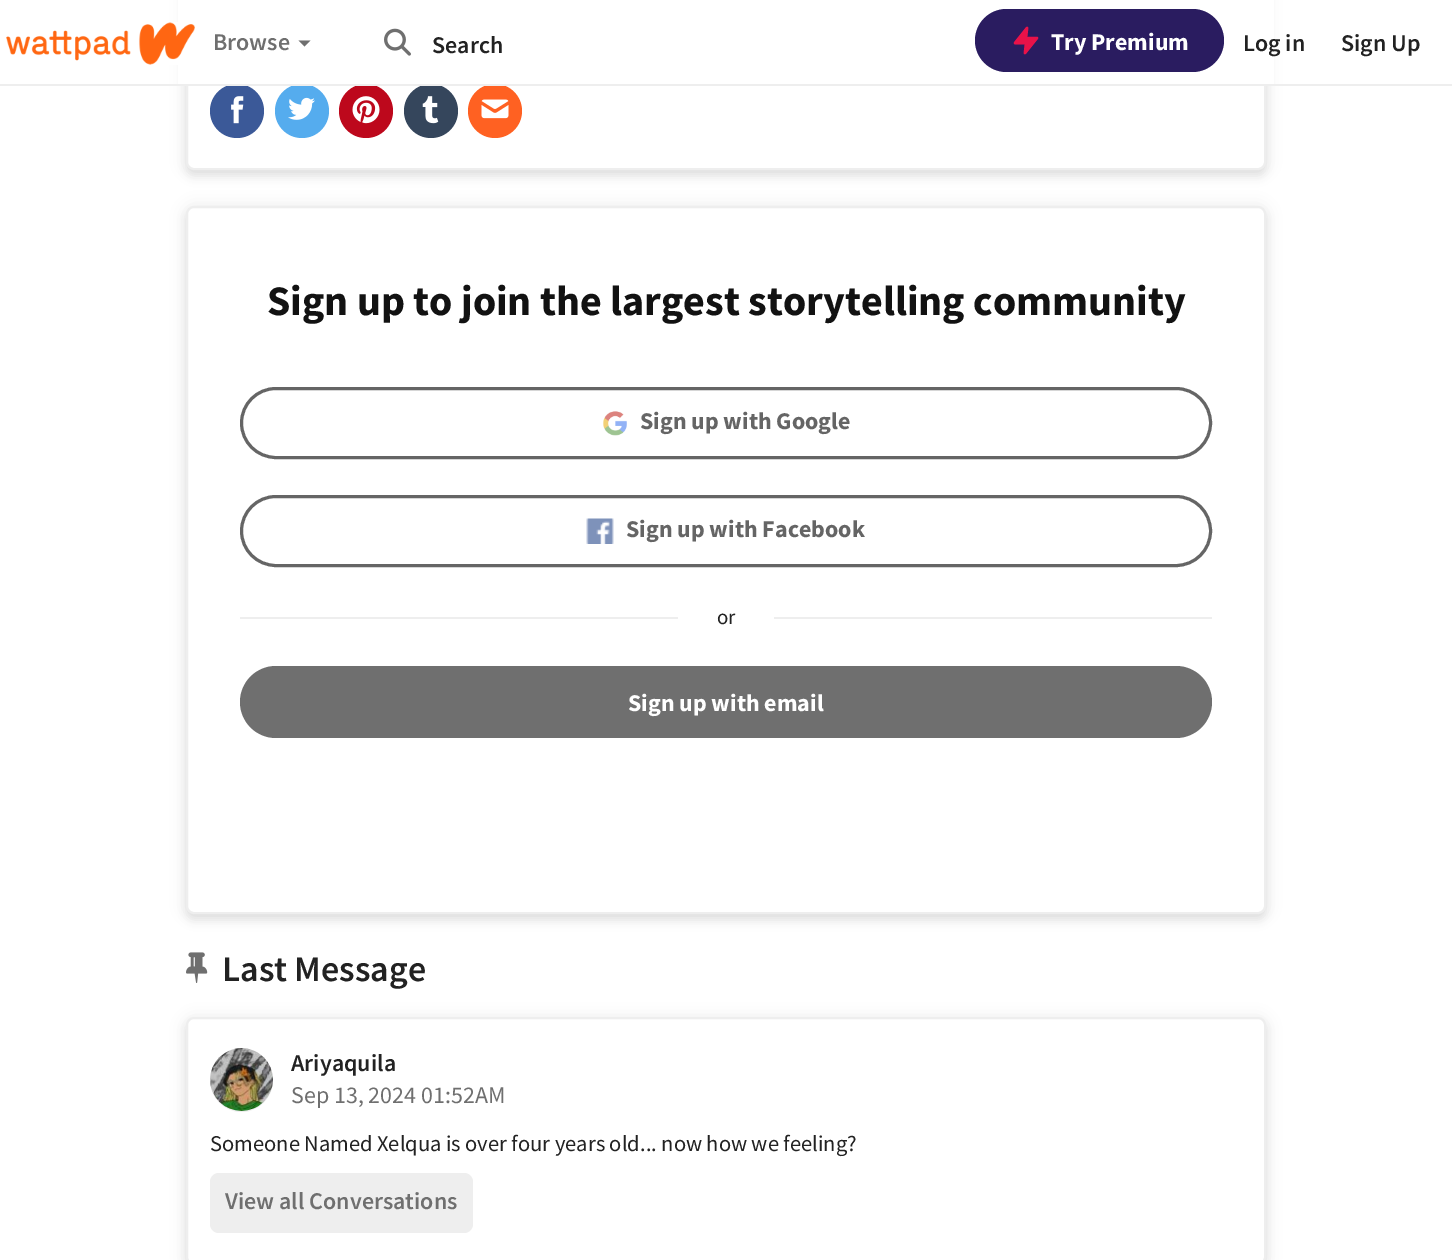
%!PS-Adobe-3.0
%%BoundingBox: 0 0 1452 1260
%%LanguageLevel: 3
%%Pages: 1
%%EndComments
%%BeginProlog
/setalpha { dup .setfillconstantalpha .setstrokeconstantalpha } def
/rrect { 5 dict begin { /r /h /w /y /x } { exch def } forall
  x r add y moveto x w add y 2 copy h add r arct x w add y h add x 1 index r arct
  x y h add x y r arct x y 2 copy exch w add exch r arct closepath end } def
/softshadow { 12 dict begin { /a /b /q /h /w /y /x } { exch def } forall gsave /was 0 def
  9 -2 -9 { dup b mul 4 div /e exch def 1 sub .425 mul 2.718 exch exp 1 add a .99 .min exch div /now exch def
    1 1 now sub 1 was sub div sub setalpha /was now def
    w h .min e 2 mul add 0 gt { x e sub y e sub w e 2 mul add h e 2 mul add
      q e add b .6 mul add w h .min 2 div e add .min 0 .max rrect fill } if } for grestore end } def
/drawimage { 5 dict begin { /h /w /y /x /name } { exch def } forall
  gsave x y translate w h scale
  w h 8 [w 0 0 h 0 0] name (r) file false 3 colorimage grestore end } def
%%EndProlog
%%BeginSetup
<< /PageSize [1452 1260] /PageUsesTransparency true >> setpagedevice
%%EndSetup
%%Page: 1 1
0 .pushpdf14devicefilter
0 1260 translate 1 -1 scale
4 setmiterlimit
1 setgray
0 0 1452 1260 rectfill
0.133 setgray
186 -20 1080 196 8 4 0.1 softshadow
186 -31 1080 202 8 7.5 0.08 softshadow
1 setgray
187 -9 1078 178 7 rrect gsave fill grestore
0.933 setgray
2 setlinewidth
stroke
1 setgray
178 0 1096 84 rectfill
0.231 0.349 0.596 setrgbcolor
newpath 237 111 27 0 360 arc closepath fill
0.333 0.675 0.933 setrgbcolor
newpath 302 111 27 0 360 arc closepath fill
0.741 0.031 0.11 setrgbcolor
newpath 366 111 27 0 360 arc closepath fill
0.208 0.275 0.361 setrgbcolor
newpath 431 111 27 0 360 arc closepath fill
1 0.38 0.133 setrgbcolor
newpath 495 111 27 0 360 arc closepath fill
0.933 setgray
0 84 1452 2 rectfill
(images/1.raw) 6 22 189 43 drawimage
0.435 setgray
newpath 298.5 40.5 moveto 310.5 40.5 lineto 304.5 46.5 lineto closepath fill
(images/2.raw) 384 28 27 28 drawimage
0.165 0.11 0.376 setrgbcolor
975 9 249 63 31.5 rrect fill
0.91 0.071 0.286 setrgbcolor
newpath 1027 28 moveto 1015 43 lineto 1026 43 lineto 1025 53 lineto 1037 38 lineto 1026 38 lineto closepath gsave fill grestore
2.5 setlinewidth
1 setlinecap
1 setlinejoin
stroke
(images/3.raw) 231 96 13 28 drawimage
(images/4.raw) 288 97 27 23 drawimage
(images/5.raw) 352 96 28 28 drawimage
(images/6.raw) 422 96 17 28 drawimage
(images/7.raw) 481 99 28 20 drawimage
0.133 setgray
186 212 1080 708 8 4 0.1 softshadow
186 207 1080 708 8 7.5 0.08 softshadow
1 setgray
187 207 1078 706 7 rrect gsave fill grestore
0.933 setgray
2 setlinewidth
0 setlinecap
0 setlinejoin
stroke
0.396 setgray
3 setlinewidth
241.5 388.5 969 69 34.5 rrect stroke
(images/8.raw) 603 411 24 25 drawimage
241.5 496.5 969 69 34.5 rrect stroke
(images/9.raw) 586 518 28 26 drawimage
0.933 setgray
240 617 438 2 rectfill
774 617 438 2 rectfill
0.435 setgray
240 666 972 72 36 rrect fill
(images/10.raw) 186 952 22 31 drawimage
0.133 setgray
186 1023 1080 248 8 4 0.1 softshadow
186 1019 1080 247 8 7.5 0.08 softshadow
1 setgray
187 1018 1078 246 7 rrect gsave fill grestore
0.933 setgray
2 setlinewidth
stroke
newpath 241.5 1080.5 31.5 0 360 arc closepath fill
(images/11.raw) 210 1048 63 63 drawimage
210 1173 263 60 9 rrect fill
/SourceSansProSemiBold-SemiBold [24 0 0 -24 0 0] selectfont
0.435 setgray
213 50 moveto (Browse) show
0.133 setgray
432 53 moveto (Search) show
/SourceSansPro-Bold [24 0 0 -24 0 0] selectfont
1 setgray
1051 50 moveto (Try Premium) show
/SourceSansProSemiBold-SemiBold [24 0 0 -24 0 0] selectfont
0.133 setgray
1243 51 moveto (Log in) show
1341 51 moveto (Sign Up) show
/SourceSansPro-Bold [42 0 0 -42 0 0] selectfont
0.071 setgray
267 315 moveto (Sign up to join the largest storytelling community) show
/SourceSansPro-Bold [24 0 0 -24 0 0] selectfont
0.396 setgray
640 429 moveto (Sign up with Google) show
626 537 moveto (Sign up with Facebook) show
/SourceSansPro-Regular [21 0 0 -21 0 0] selectfont
0.133 setgray
717 624 moveto (or) show
/SourceSansPro-Bold [24 0 0 -24 0 0] selectfont
1 setgray
628 711 moveto (Sign up with email) show
/SourceSansProSemiBold-SemiBold [36 0 0 -36 0 0] selectfont
0.133 setgray
222 981 moveto (Last Message) show
/SourceSansProSemiBold-SemiBold [24 0 0 -24 0 0] selectfont
291 1071 moveto (Ariyaquila) show
/SourceSansPro-Regular [24 0 0 -24 0 0] selectfont
0.435 setgray
291 1103 moveto (Sep 13, 2024 01:52AM) show
/SourceSansPro-Regular [22.5 0 0 -22.5 0 0] selectfont
0.133 setgray
210 1151 moveto (Someone Named Xelqua is over four years old... now how we feeling?) show
/SourceSansProSemiBold-SemiBold [24 0 0 -24 0 0] selectfont
0.435 setgray
225 1209 moveto (View all Conversations) show
.poppdf14devicefilter showpage
%%EOF
